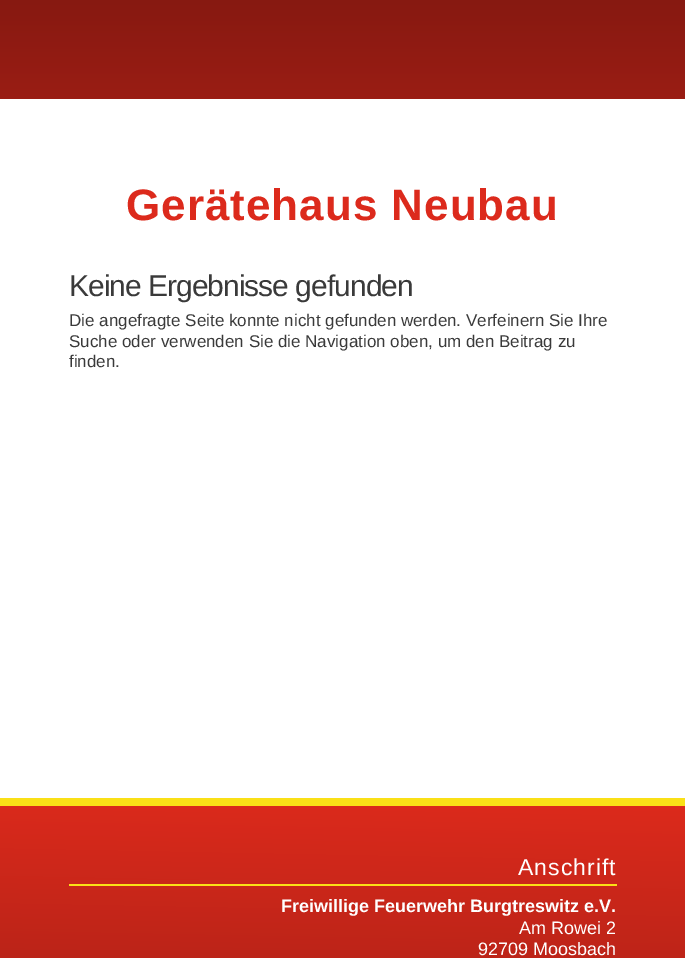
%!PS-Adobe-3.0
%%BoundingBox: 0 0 685 958
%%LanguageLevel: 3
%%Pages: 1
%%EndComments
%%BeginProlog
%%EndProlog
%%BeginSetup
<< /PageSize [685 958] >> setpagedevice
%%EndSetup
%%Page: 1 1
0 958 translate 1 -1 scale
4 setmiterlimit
1 setgray
0 0 685 958 rectfill
gsave newpath 0 0 moveto 685 0 lineto 685 99 lineto 0 99 lineto closepath clip newpath
<< /ShadingType 2 /ColorSpace /DeviceRGB /Coords [343 -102 343 99] /Extend [true true] /Function << /FunctionType 2 /Domain [0 1] /C0 [0.451 0.082 0.055] /C1 [0.604 0.114 0.078] /N 1 >> >> shfill grestore
gsave newpath 0 806 moveto 685 806 lineto 685 958 lineto 0 958 lineto closepath clip newpath
<< /ShadingType 2 /ColorSpace /DeviceRGB /Coords [339 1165 346 800] /Extend [true true] /Function << /FunctionType 2 /Domain [0 1] /C0 [0.576 0.11 0.075] /C1 [0.863 0.165 0.11] /N 1 >> >> shfill grestore
0.98 0.878 0.09 setrgbcolor
0 798 685 8 rectfill
69 884 548 2 rectfill
/LiberationSans-Bold [44 0 0 -44 0 0] selectfont
0.863 0.165 0.11 setrgbcolor
126 220 moveto 1 0 (Gerätehaus Neubau) ashow
/LiberationSans-Regular [30 0 0 -30 0 0] selectfont
0.227 setgray
69 296 moveto -1 0 (Keine Ergebnisse gefunden) ashow
/LiberationSans-Regular [17 0 0 -17 0 0] selectfont
69 326 moveto (Die angefragte Seite konnte nicht gefunden werden. Verfeinern Sie Ihre) show
69 347 moveto (Suche oder verwenden Sie die Navigation oben, um den Beitrag zu) show
69 367 moveto (finden.) show
/LiberationSans-Regular [23 0 0 -23 0 0] selectfont
1 setgray
518 875 moveto 1 0 (Anschrift) ashow
/LiberationSans-Bold [18 0 0 -18 0 0] selectfont
281 912 moveto (Freiwillige Feuerwehr Burgtreswitz e.V.) show
/LiberationSans-Regular [18 0 0 -18 0 0] selectfont
519 934 moveto (Am Rowei 2) show
478 955 moveto (92709 Moosbach) show
showpage
%%EOF
